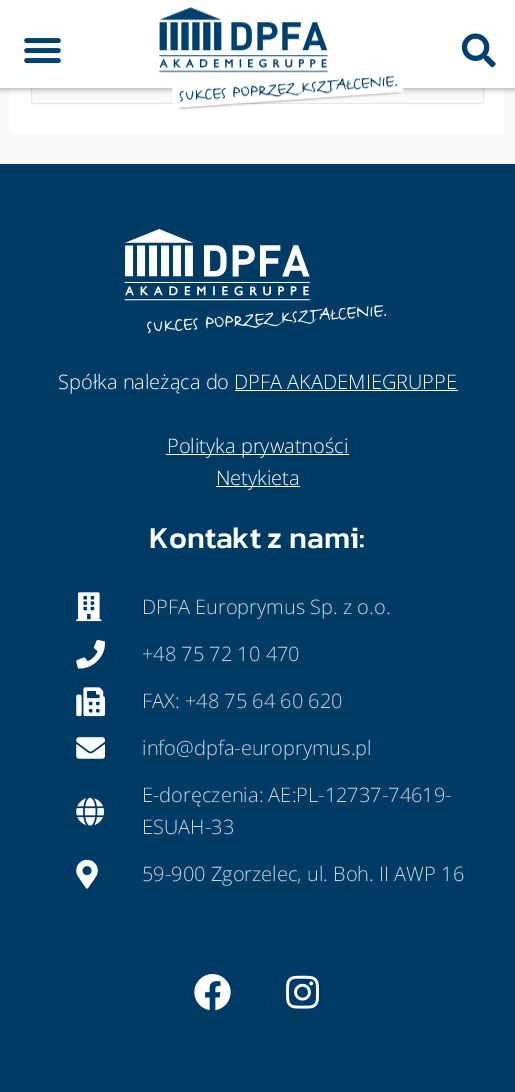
%!PS-Adobe-3.0
%%BoundingBox: 0 0 515 1092
%%LanguageLevel: 3
%%Pages: 1
%%EndComments
%%BeginProlog
/setalpha { dup .setfillconstantalpha .setstrokeconstantalpha } def
/rrect { 5 dict begin { /r /h /w /y /x } { exch def } forall
  x r add y moveto x w add y 2 copy h add r arct x w add y h add x 1 index r arct
  x y h add x y r arct x y 2 copy exch w add exch r arct closepath end } def
/softshadow { 12 dict begin { /a /b /q /h /w /y /x } { exch def } forall gsave /was 0 def
  9 -2 -9 { dup b mul 4 div /e exch def 1 sub .425 mul 2.718 exch exp 1 add a .99 .min exch div /now exch def
    1 1 now sub 1 was sub div sub setalpha /was now def
    w h .min e 2 mul add 0 gt { x e sub y e sub w e 2 mul add h e 2 mul add
      q e add b .6 mul add w h .min 2 div e add .min 0 .max rrect fill } if } for grestore end } def
/drawimage { 5 dict begin { /h /w /y /x /name } { exch def } forall
  gsave x y translate w h scale
  w h 8 [w 0 0 h 0 0] name (r) file false 3 colorimage grestore end } def
%%EndProlog
%%BeginSetup
<< /PageSize [515 1092] /PageUsesTransparency true >> setpagedevice
%%EndSetup
%%Page: 1 1
0 .pushpdf14devicefilter
0 1092 translate 1 -1 scale
4 setmiterlimit
0.976 0.98 0.984 setrgbcolor
0 0 515 1092 rectfill
1 setgray
11 88 493 46 rectfill
0.98 setgray
31.5 33.5 452 70 2 rrect gsave fill grestore
0.886 0.91 0.941 setrgbcolor
stroke
0 setgray
0 1 515 88 0 3 0.35 softshadow
1 setgray
0 0 515 88 rectfill
(images/1.raw) 24 38 37 26 drawimage
(images/2.raw) 159 7 245 103 drawimage
(images/3.raw) 461 33 35 35 drawimage
0 0.231 0.4 setrgbcolor
0 164 515 928 rectfill
(images/4.raw) 124 229 263 105 drawimage
1 setgray
235 390 223 1 rectfill
166 454 183 1 rectfill
216 486 84 1 rectfill
(images/5.raw) 76 592 26 30 drawimage
(images/6.raw) 76 639 30 30 drawimage
(images/7.raw) 76 687 29 30 drawimage
(images/8.raw) 76 737 29 22 drawimage
(images/9.raw) 76 797 29 29 drawimage
(images/10.raw) 76 859 22 30 drawimage
(images/11.raw) 194 974 37 37 drawimage
(images/12.raw) 286 975 33 34 drawimage
/OpenSans-Light [20 0 0 -20 0 0] selectfont
58 389 moveto (Spółka należąca do DPFA AKADEMIEGRUPPE) show
167 453 moveto (Polityka prywatności) show
216 485 moveto (Netykieta) show
/Kanit-Medium [30.5 0 0 -30.5 0 0] selectfont
149 548 moveto (Kontakt z nami:) show
/OpenSans-Light [20 0 0 -20 0 0] selectfont
0.8 0.847 0.878 setrgbcolor
142 614 moveto (DPFA Europrymus Sp. z o.o.) show
142 661 moveto (+48 75 72 10 470) show
142 708 moveto (FAX: +48 75 64 60 620) show
142 755 moveto (info@dpfa-europrymus.pl) show
142 802 moveto (E-doręczenia: AE:PL-12737-74619-) show
142 834 moveto (ESUAH-33) show
142 881 moveto (59-900 Zgorzelec, ul. Boh. II AWP 16) show
.poppdf14devicefilter showpage
%%EOF
